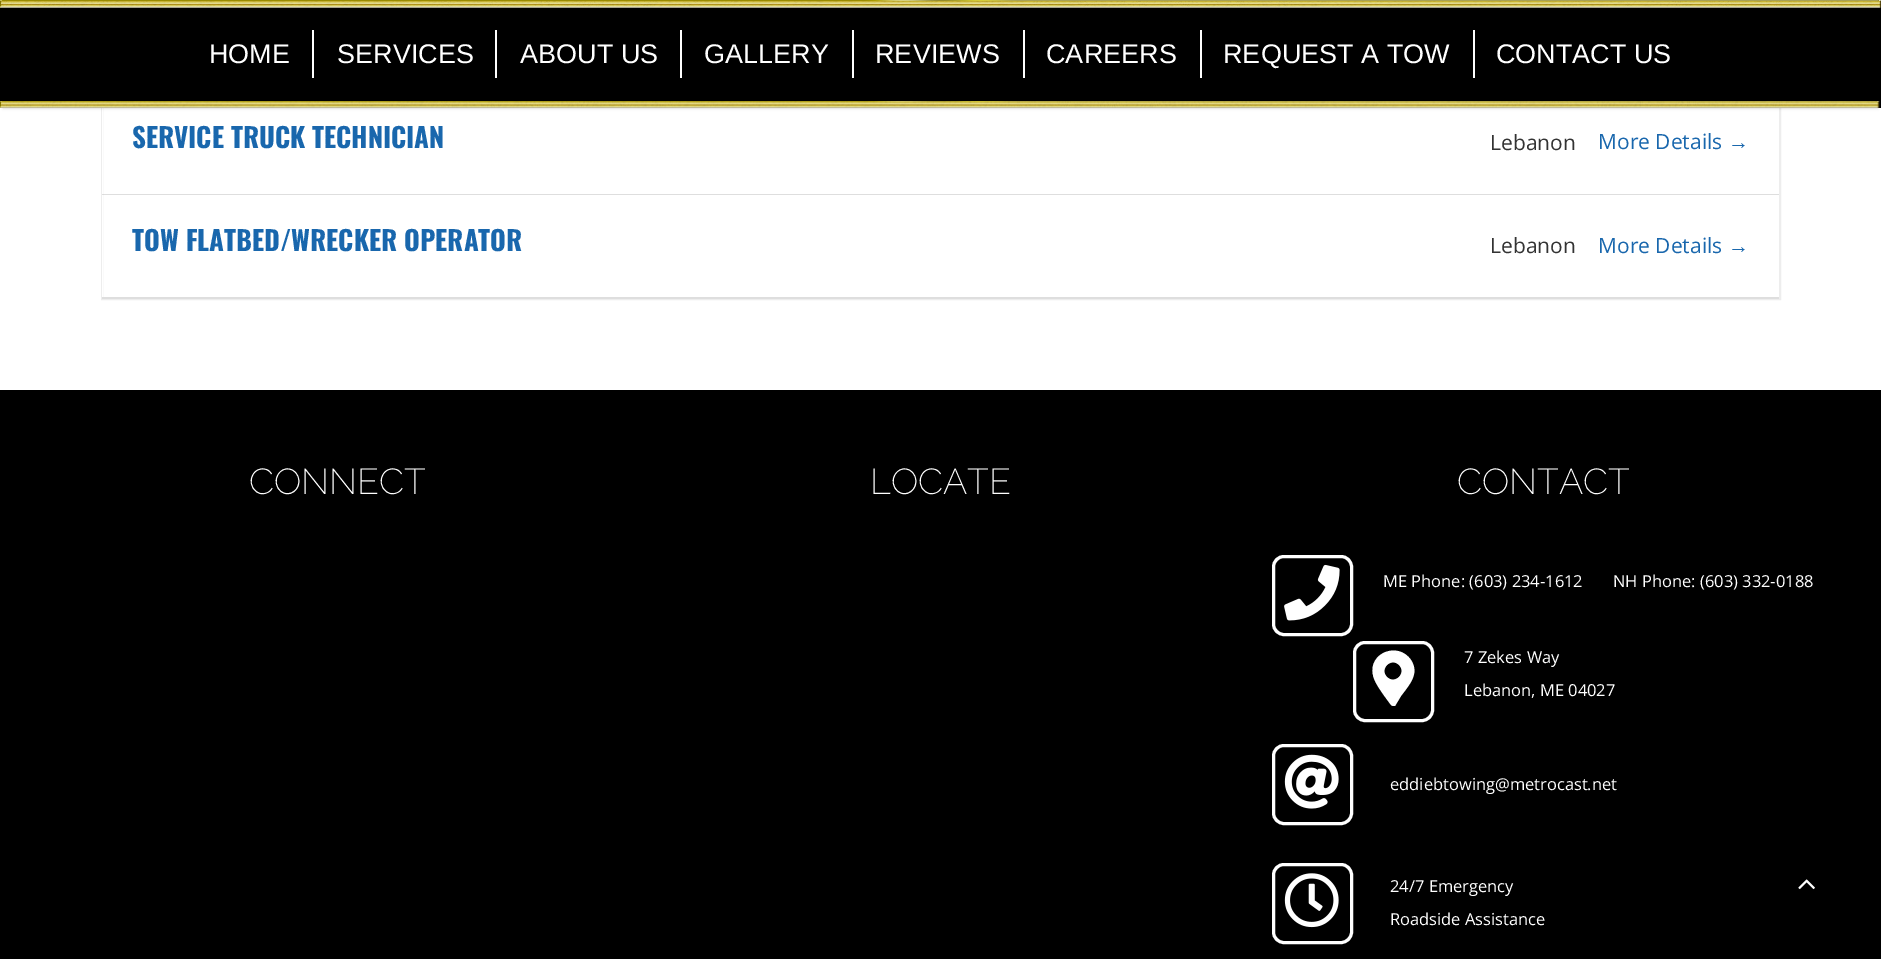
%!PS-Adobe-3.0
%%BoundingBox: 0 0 1881 959
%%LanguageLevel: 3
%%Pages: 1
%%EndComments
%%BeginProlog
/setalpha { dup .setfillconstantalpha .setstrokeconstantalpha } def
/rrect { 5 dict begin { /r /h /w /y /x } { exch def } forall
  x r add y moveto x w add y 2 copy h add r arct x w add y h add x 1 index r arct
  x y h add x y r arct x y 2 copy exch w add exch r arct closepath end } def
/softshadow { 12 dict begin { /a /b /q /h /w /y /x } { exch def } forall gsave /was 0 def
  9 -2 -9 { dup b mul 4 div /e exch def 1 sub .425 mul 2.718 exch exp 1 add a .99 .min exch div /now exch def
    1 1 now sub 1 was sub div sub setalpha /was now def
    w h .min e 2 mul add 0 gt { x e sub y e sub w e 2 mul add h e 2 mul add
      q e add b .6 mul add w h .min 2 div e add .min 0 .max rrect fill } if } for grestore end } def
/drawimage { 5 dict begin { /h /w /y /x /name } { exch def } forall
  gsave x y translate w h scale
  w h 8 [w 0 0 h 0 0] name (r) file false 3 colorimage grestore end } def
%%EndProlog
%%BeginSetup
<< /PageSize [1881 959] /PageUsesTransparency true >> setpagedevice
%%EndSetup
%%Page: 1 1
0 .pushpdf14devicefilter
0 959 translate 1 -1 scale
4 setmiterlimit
1 setgray
0 0 1881 959 rectfill
0.929 setgray
2 setlinewidth
102 -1 1678 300 rectstroke
1 setgray
102 108 1 189 rectfill
0 setgray
3 6 1875 102 0 1.5 0.2 softshadow
0 0 1881 108 rectfill
(images/1.raw) 0 0 1881 8 drawimage
1 setgray
312 30 2 48 rectfill
495 30 2 48 rectfill
680 30 2 48 rectfill
852 30 2 48 rectfill
1023 30 2 48 rectfill
1200 30 2 48 rectfill
1473 30 2 48 rectfill
(images/2.raw) 0 101 1880 7 drawimage
0.13 setalpha
0 setgray
102 194 1677 1 rectfill
1 setalpha
0.871 setgray
102 297 1677 2 rectfill
0 setgray
0 390 1881 569 rectfill
1 setgray
3 setlinewidth
1273.5 556.5 78 78 10.5 rrect stroke
(images/3.raw) 1284 564 56 57 drawimage
1354.5 642.5 78 78 10.5 rrect stroke
newpath 1391 705 moveto 1386 698 1374 683 1373 675 curveto 1368 653 1398 641 1411 660 curveto 1420 674 1409 685 1401 696 curveto 1395 706 lineto 1393 706 1392 706 1391 705 curveto closepath 1387 677 moveto 1395 685 1407 673 1399 665 curveto 1391 657 1379 669 1387 677 curveto closepath fill
1273.5 745.5 78 78 10.5 rrect stroke
(images/4.raw) 1284 754 55 55 drawimage
1273.5 864.5 78 78 10.5 rrect stroke
(images/5.raw) 1284 873 55 55 drawimage
(images/6.raw) 1798 879 17 11 drawimage
/LiberationSans-Regular [27 0 0 -27 0 0] selectfont
209 63 moveto (HOME) show
337 63 moveto (SERVICES) show
520 63 moveto (ABOUT US) show
704 63 moveto (GALLERY) show
875 63 moveto (REVIEWS) show
1046 63 moveto (CAREERS) show
1223 63 moveto (REQUEST A TOW) show
1496 63 moveto (CONTACT US) show
/Oswald-Bold [27 0 0 -27 0 0] selectfont
0.098 0.404 0.678 setrgbcolor
132 148 moveto (SERVICE TRUCK TECHNICIAN) show
/OpenSans-Regular [21 0 0 -21 0 0] selectfont
0.2 setgray
1490 150 moveto (Lebanon) show
0.098 0.404 0.678 setrgbcolor
1598 149 moveto (More Details) show
/LiberationSans-Regular [21 0 0 -21 0 0] selectfont
1728 149 moveto (→) show
/Oswald-Bold [27 0 0 -27 0 0] selectfont
132 251 moveto (TOW FLATBED/WRECKER OPERATOR) show
/OpenSans-Regular [21 0 0 -21 0 0] selectfont
0.2 setgray
1490 253 moveto (Lebanon) show
0.098 0.404 0.678 setrgbcolor
1598 253 moveto (More Details) show
/LiberationSans-Regular [21 0 0 -21 0 0] selectfont
1728 253 moveto (→) show
/Raleway-ExtraLight [36 0 0 -36 0 0] selectfont
1 setgray
249 494 moveto (CONNECT) show
870 494 moveto (LOCATE) show
1457 494 moveto (CONTACT) show
/OpenSans-Regular [16.5 0 0 -16.5 0 0] selectfont
1383 587 moveto (ME Phone: \(603\) 234-1612) show
1613 587 moveto (NH Phone: \(603\) 332-0188) show
1464 663 moveto (7 Zekes Way) show
1464 696 moveto (Lebanon, ME 04027) show
1390 790 moveto (eddiebtowing@metrocast.net) show
1390 892 moveto (24/7 Emergency) show
1390 925 moveto (Roadside Assistance) show
.poppdf14devicefilter showpage
%%EOF
